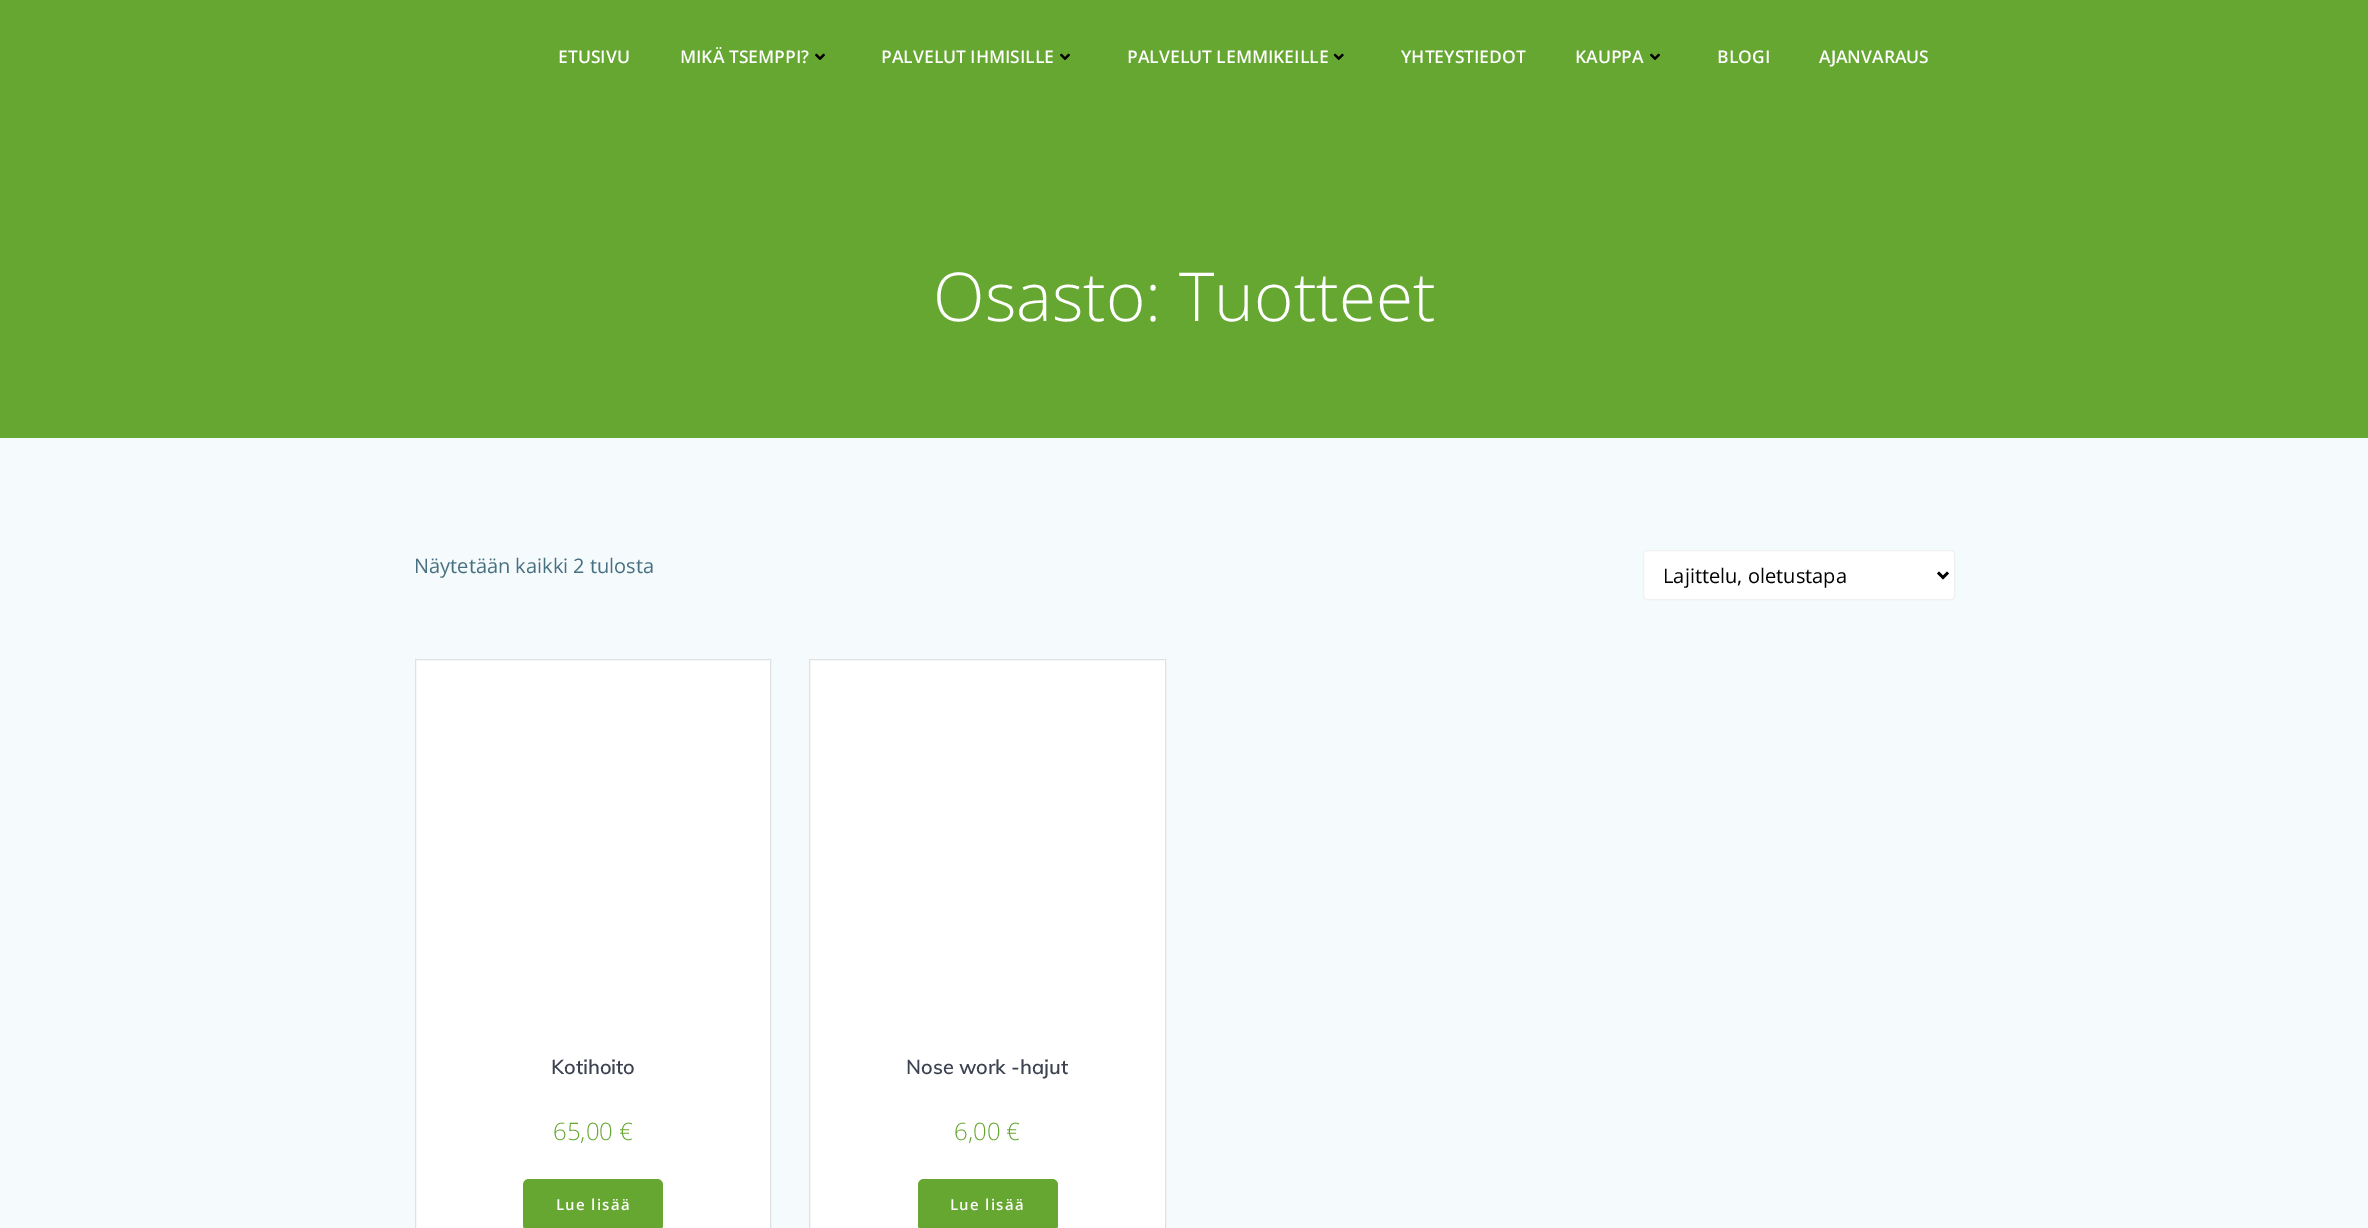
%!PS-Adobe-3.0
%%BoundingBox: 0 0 2368 1228
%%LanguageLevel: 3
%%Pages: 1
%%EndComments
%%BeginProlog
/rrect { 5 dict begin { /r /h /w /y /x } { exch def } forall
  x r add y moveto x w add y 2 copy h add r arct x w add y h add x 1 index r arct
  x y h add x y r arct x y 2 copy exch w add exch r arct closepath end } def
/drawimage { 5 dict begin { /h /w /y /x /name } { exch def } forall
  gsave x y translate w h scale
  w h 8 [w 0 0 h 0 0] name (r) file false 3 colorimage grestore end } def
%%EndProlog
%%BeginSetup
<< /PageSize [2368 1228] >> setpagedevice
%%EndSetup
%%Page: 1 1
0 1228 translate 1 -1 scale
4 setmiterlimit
0.4 0.655 0.192 setrgbcolor
0 0 2368 1228 rectfill
(images/1.raw) 815 53 10 7 drawimage
(images/1.raw) 1060 53 10 7 drawimage
(images/2.raw) 1333 53 11 7 drawimage
(images/1.raw) 1650 53 10 7 drawimage
0.961 0.98 0.992 setrgbcolor
0 438 2368 790 rectfill
1 setgray
1643.5 550.5 311 49 3.5 rrect gsave fill grestore
0.945 setgray
stroke
0 setgray
2.5 setlinewidth
newpath 1938 572.5 moveto 1943 577.5 lineto 1948 572.5 lineto stroke
1 setgray
newpath 415.5 659.5 moveto 770.5 659.5 lineto 770.5 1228.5 lineto 415.5 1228.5 lineto closepath gsave fill grestore
0.878 0.882 0.882 setrgbcolor
1 setlinewidth
stroke
0.4 0.655 0.192 setrgbcolor
523 1179 140 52 6 rrect fill
1 setgray
newpath 809.5 659.5 moveto 1165.5 659.5 lineto 1165.5 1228.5 lineto 809.5 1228.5 lineto closepath gsave fill grestore
0.878 0.882 0.882 setrgbcolor
stroke
0.4 0.655 0.192 setrgbcolor
918 1179 140 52 6 rrect fill
/OpenSans-SemiBold [17.5 0 0 -17.5 0 0] selectfont
1 setgray
558 63 moveto (ETUSIVU) show
680 63 moveto (MIKÄ TSEMPPI?) show
881 63 moveto (PALVELUT IHMISILLE) show
1127 63 moveto (PALVELUT LEMMIKEILLE) show
1401 63 moveto (YHTEYSTIEDOT) show
1575 63 moveto (KAUPPA) show
1717 63 moveto (BLOGI) show
1819 63 moveto (AJANVARAUS) show
/OpenSans-Light [67.5 0 0 -67.5 0 0] selectfont
933 321 moveto (Osasto: Tuotteet) show
/OpenSans-Regular [20 0 0 -20 0 0] selectfont
0.275 0.439 0.498 setrgbcolor
414 573 moveto (Näytetään kaikki 2 tulosta) show
0 setgray
1663 583 moveto (Lajittelu, oletustapa) show
/Muli-SemiBold [20 0 0 -20 0 0] selectfont
0.235 0.259 0.31 setrgbcolor
551 1074 moveto (Kotihoito) show
/OpenSans-Light [24 0 0 -24 0 0] selectfont
0.4 0.655 0.192 setrgbcolor
553 1140 moveto (65,00 €) show
/OpenSans-SemiBold [15 0 0 -15 0 0] selectfont
1 setgray
556 1210 moveto 1.25 0 (Lue lisää) ashow
/Muli-SemiBold [20 0 0 -20 0 0] selectfont
0.235 0.259 0.31 setrgbcolor
906 1074 moveto (Nose work -hajut) show
/OpenSans-Light [24 0 0 -24 0 0] selectfont
0.4 0.655 0.192 setrgbcolor
954 1140 moveto (6,00 €) show
/OpenSans-SemiBold [15 0 0 -15 0 0] selectfont
1 setgray
950 1210 moveto 1.25 0 (Lue lisää) ashow
showpage
%%EOF
